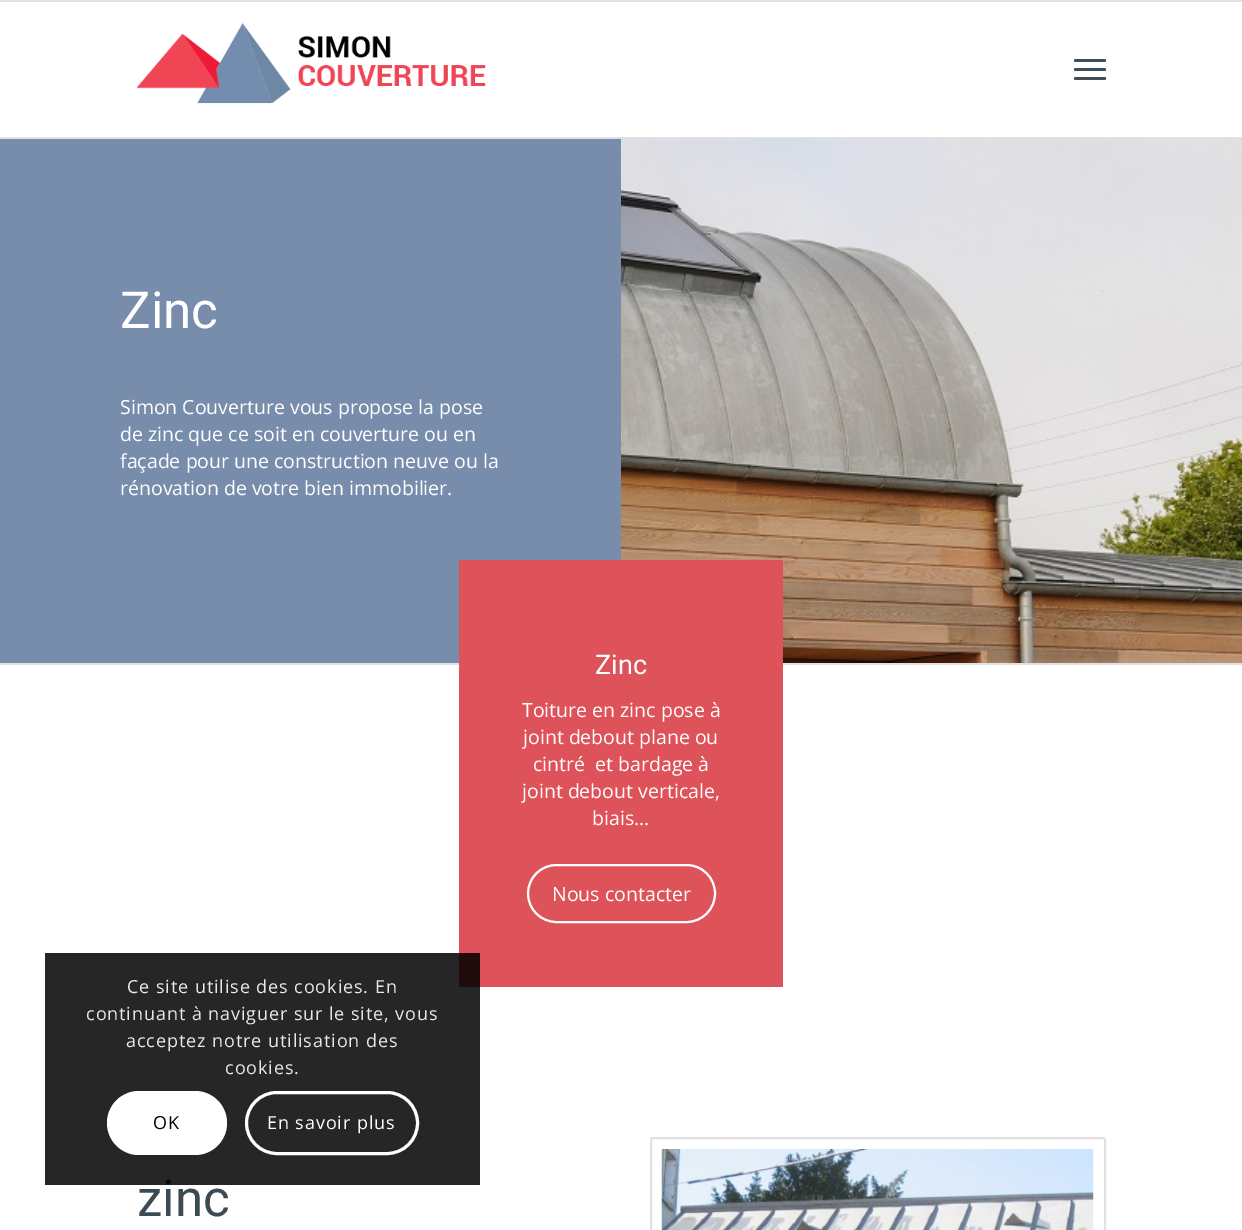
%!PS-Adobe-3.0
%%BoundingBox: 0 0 1242 1230
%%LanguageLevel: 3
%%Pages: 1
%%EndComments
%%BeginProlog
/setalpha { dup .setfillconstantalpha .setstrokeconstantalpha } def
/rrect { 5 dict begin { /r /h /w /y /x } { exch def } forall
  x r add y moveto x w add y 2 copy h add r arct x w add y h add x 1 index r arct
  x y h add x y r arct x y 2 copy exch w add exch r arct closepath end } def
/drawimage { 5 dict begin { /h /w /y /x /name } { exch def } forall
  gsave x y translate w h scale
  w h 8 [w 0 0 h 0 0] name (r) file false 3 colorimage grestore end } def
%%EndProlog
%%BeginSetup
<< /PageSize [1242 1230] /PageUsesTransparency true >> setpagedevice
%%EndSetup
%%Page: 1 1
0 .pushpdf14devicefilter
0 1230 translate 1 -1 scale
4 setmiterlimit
1 setgray
0 0 1242 1230 rectfill
0.882 setgray
0 0 1242 2 rectfill
0 137 1242 2 rectfill
(images/1.raw) 136 23 350 81 drawimage
0.251 0.306 0.353 setrgbcolor
1074 68 32 3 1.5 rrect fill
1074 59 32 3 1.5 rrect fill
1074 77 32 3 1.5 rrect fill
0.471 0.553 0.671 setrgbcolor
0 139 621 524 rectfill
(images/2.raw) 621 139 621 524 drawimage
0.882 setgray
0 663 1242 2 rectfill
0.871 0.325 0.349 setrgbcolor
459 560 324 427 rectfill
1 setgray
2 setlinewidth
528 865 187 57 28.5 rrect stroke
0.882 setgray
newpath 653 1138 moveto 1103 1138 lineto 1104 1138 1105 1139 1105 1140 curveto 1105 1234 lineto 651 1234 lineto 651 1140 lineto 651 1139 652 1138 653 1138 curveto closepath stroke
(images/3.raw) 661 1149 433 81 drawimage
/Roboto-Regular [51 0 0 -51 0 0] selectfont
1 setgray
120 328 moveto (Zinc) show
/OpenSans-Regular [19.5 0 0 -19.5 0 0] selectfont
120 414 moveto (Simon Couverture vous propose la pose) show
120 441 moveto (de zinc que ce soit en couverture ou en) show
120 468 moveto (façade pour une construction neuve ou la) show
120 495 moveto (rénovation de votre bien immobilier.) show
/Roboto-Regular [27 0 0 -27 0 0] selectfont
595 674 moveto (Zinc) show
/OpenSans-Regular [19.5 0 0 -19.5 0 0] selectfont
522 717 moveto (Toiture en zinc pose à) show
523 744 moveto (joint debout plane ou) show
533 771 moveto (cintré  et bardage à) show
522 798 moveto (joint debout verticale,) show
592 825 moveto (biais…) show
552 901 moveto (Nous contacter) show
/Roboto-Regular [51 0 0 -51 0 0] selectfont
0.235 0.29 0.325 setrgbcolor
137 1216 moveto (zinc) show
0.85 setalpha
0 setgray
45 953 435 232 rectfill
/OpenSans-Regular [18 0 0 -18 0 0] selectfont
1 setalpha
0.914 setgray
127 993 moveto 0.9 0 (Ce site utilise des cookies. En) ashow
86 1020 moveto 0.9 0 (continuant à naviguer sur le site, vous) ashow
126 1047 moveto 0.9 0 (acceptez notre utilisation des) ashow
225 1074 moveto 0.9 0 (cookies.) ashow
1 setgray
107 1091 120 64 32 rrect fill
0 setgray
153 1129 moveto 0.9 0 (OK) ashow
1 setgray
3 setlinewidth
246.5 1092.5 171 61 30.5 rrect stroke
267 1129 moveto 0.9 0 (En savoir plus) ashow
.poppdf14devicefilter showpage
%%EOF
